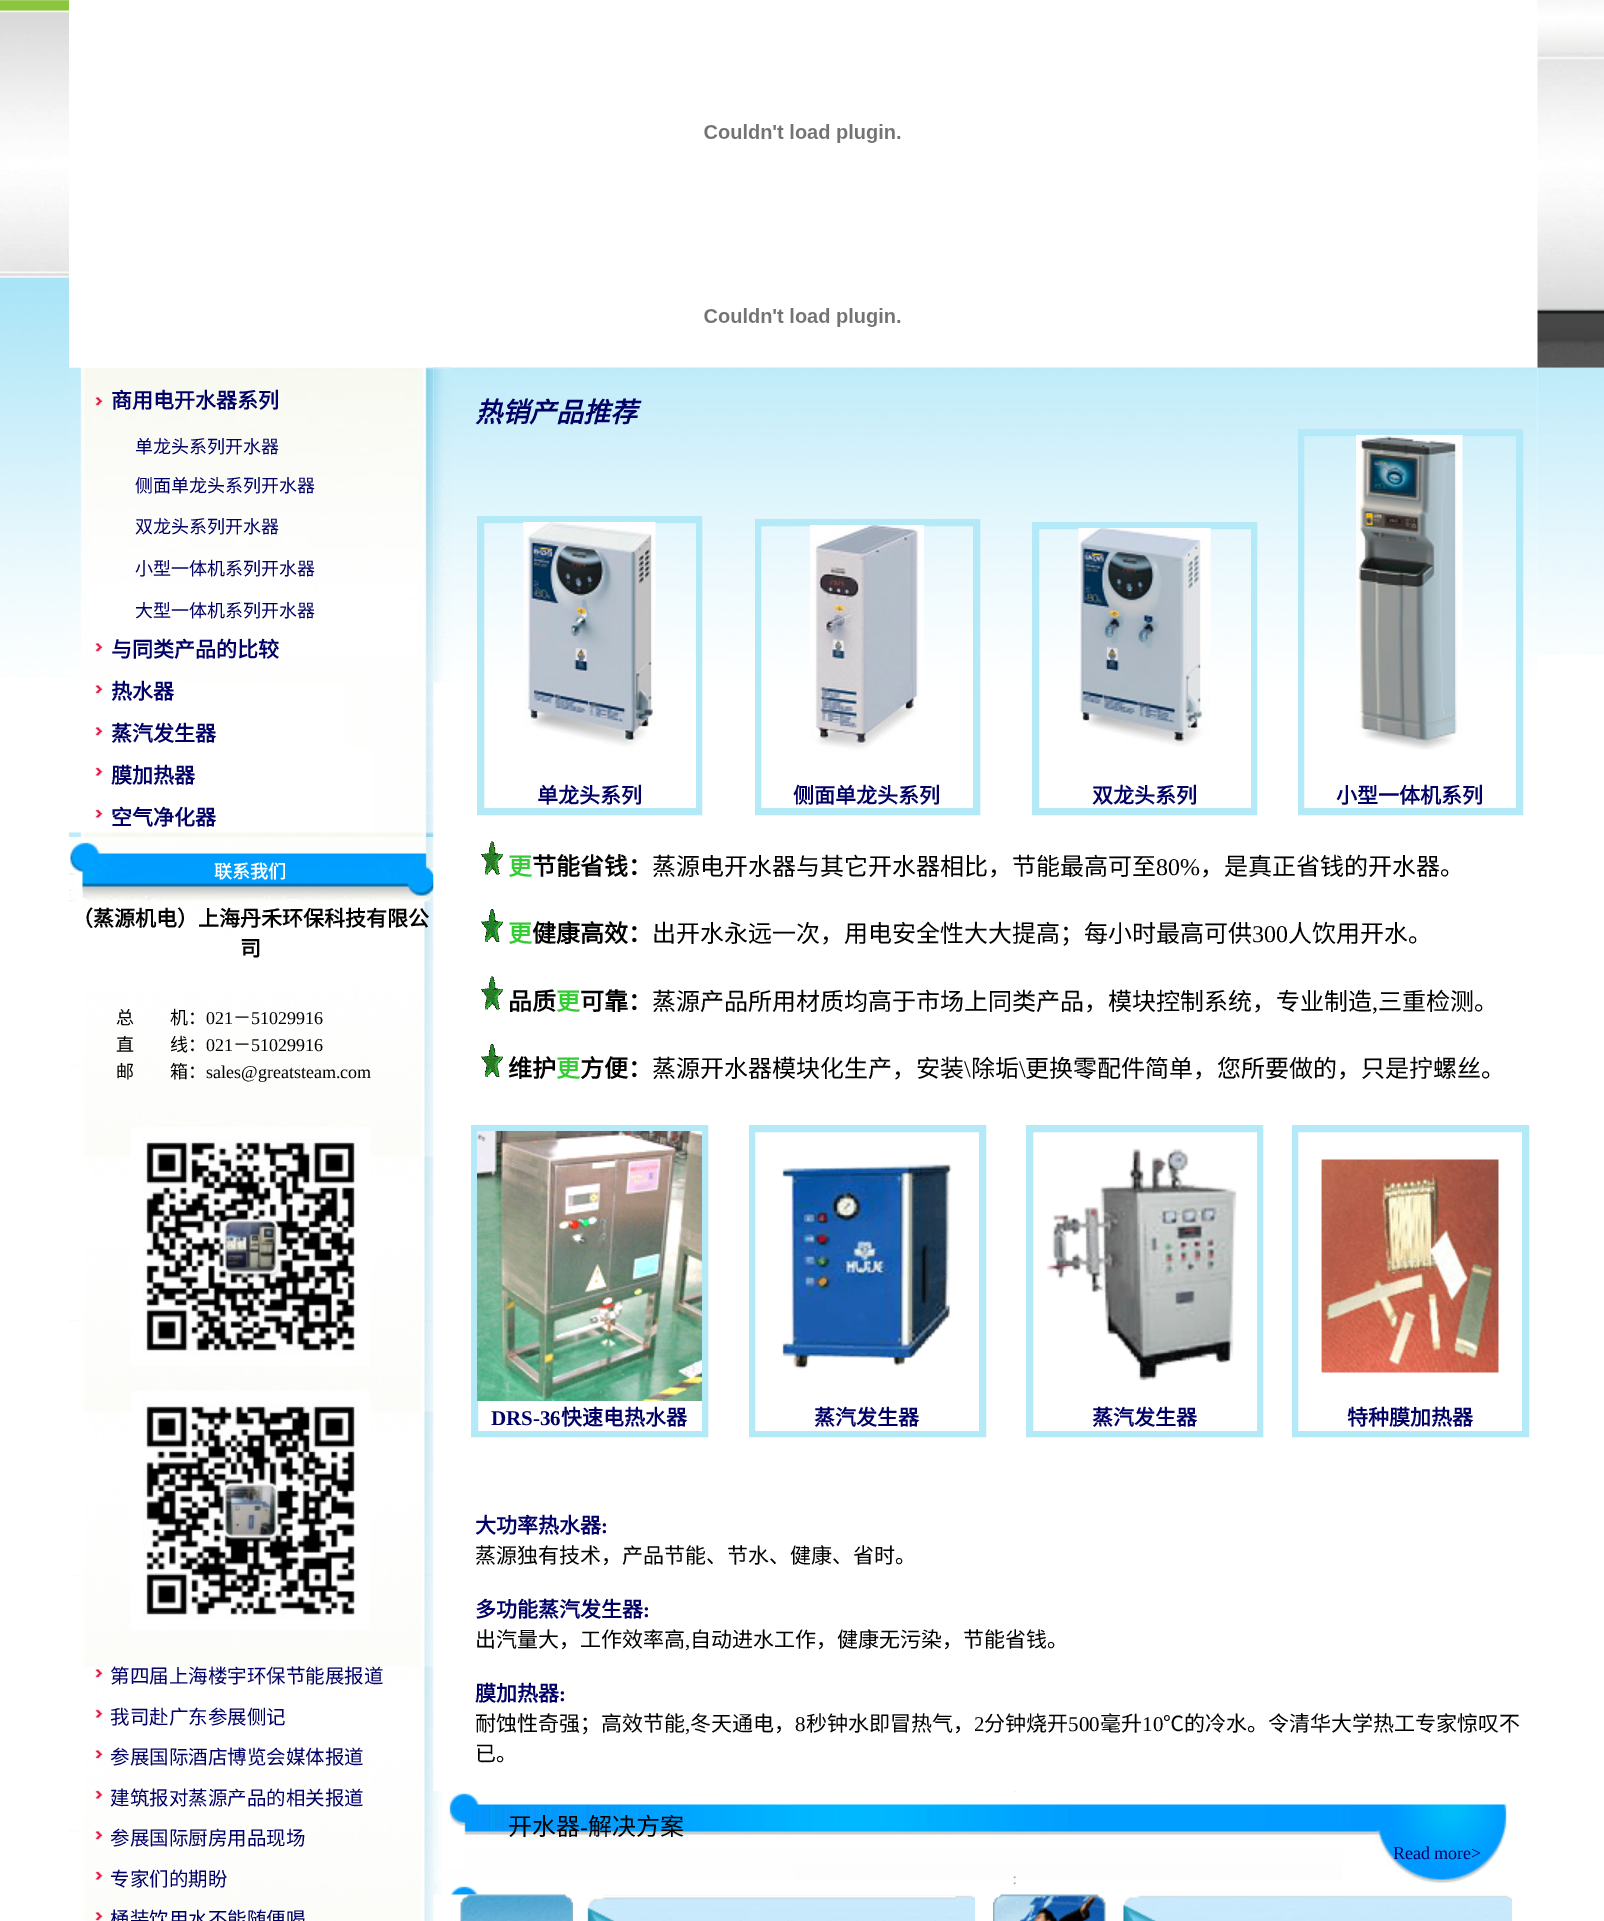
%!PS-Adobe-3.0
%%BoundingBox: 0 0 1604 1921
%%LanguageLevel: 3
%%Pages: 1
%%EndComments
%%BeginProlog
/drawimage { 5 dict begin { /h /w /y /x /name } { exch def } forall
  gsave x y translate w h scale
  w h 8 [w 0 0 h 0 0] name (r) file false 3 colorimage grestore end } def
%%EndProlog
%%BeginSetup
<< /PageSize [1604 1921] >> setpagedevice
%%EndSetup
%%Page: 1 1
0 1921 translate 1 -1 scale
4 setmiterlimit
1 setgray
0 0 1604 1921 rectfill
(images/1.raw) 0 0 69 678 drawimage
(images/2.raw) 704 124 197 19 drawimage
(images/2.raw) 704 308 197 19 drawimage
(images/3.raw) 69 367 365 470 drawimage
(images/4.raw) 95 397 8 9 drawimage
(images/5.raw) 95 643 8 9 drawimage
(images/5.raw) 95 685 8 9 drawimage
(images/5.raw) 95 727 8 9 drawimage
(images/6.raw) 95 767 8 9 drawimage
(images/6.raw) 95 809 8 9 drawimage
(images/7.raw) 69 837 365 65 drawimage
(images/8.raw) 69 901 365 1020 drawimage
(images/9.raw) 131 1127 239 239 drawimage
(images/10.raw) 131 1391 239 239 drawimage
(images/11.raw) 95 1669 8 9 drawimage
(images/6.raw) 95 1709 8 9 drawimage
(images/12.raw) 95 1750 8 9 drawimage
(images/13.raw) 95 1790 8 9 drawimage
(images/14.raw) 95 1831 8 9 drawimage
(images/15.raw) 95 1871 8 9 drawimage
(images/16.raw) 95 1912 8 9 drawimage
(images/17.raw) 433 367 1105 1401 drawimage
(images/18.raw) 433 367 19 316 drawimage
0.706 0.914 0.973 setrgbcolor
5 setlinewidth
479.5 518.5 220 294 rectstroke
2 setlinewidth
483 522 214 287 rectstroke
(images/19.raw) 523 522 133 225 drawimage
5 setlinewidth
757.5 521.5 220 291 rectstroke
2 setlinewidth
760 525 214 284 rectstroke
(images/20.raw) 810 525 114 228 drawimage
5 setlinewidth
1034.5 524.5 220 288 rectstroke
2 setlinewidth
1038 528 214 281 rectstroke
(images/21.raw) 1078 528 133 219 drawimage
5 setlinewidth
1300.5 431.5 220 381 rectstroke
2 setlinewidth
1303 435 214 374 rectstroke
(images/22.raw) 1356 435 107 315 drawimage
(images/23.raw) 481 841 22 34 drawimage
(images/24.raw) 481 909 22 33 drawimage
(images/23.raw) 481 976 22 34 drawimage
(images/24.raw) 481 1044 22 33 drawimage
5 setlinewidth
473.5 1127.5 232 307 rectstroke
2 setlinewidth
477 1131 226 301 rectstroke
(images/25.raw) 477 1131 225 270 drawimage
5 setlinewidth
751.5 1127.5 232 307 rectstroke
2 setlinewidth
754 1131 226 301 rectstroke
(images/26.raw) 782 1164 170 205 drawimage
5 setlinewidth
1028.5 1127.5 232 307 rectstroke
2 setlinewidth
1032 1131 226 301 rectstroke
(images/27.raw) 1046 1148 191 233 drawimage
5 setlinewidth
1294.5 1127.5 232 307 rectstroke
2 setlinewidth
1297 1131 226 301 rectstroke
(images/28.raw) 1321 1159 178 214 drawimage
(images/29.raw) 433 1791 1074 104 drawimage
(images/30.raw) 460 1894 113 27 drawimage
(images/31.raw) 587 1895 388 26 drawimage
(images/32.raw) 587 1896 369 25 drawimage
(images/33.raw) 587 1906 28 15 drawimage
(images/34.raw) 993 1894 113 27 drawimage
(images/35.raw) 1123 1895 389 26 drawimage
(images/36.raw) 1123 1903 34 18 drawimage
(images/37.raw) 1537 0 67 655 drawimage
/NotoSansCJKSC-Bold [21 0 0 -21 0 0] selectfont
0 0 0.4 setrgbcolor
111 408 moveto (商用电开水器系列) show
/NotoSansCJKSC-Regular [18 0 0 -18 0 0] selectfont
135 453 moveto (单龙头系列开水器) show
135 492 moveto (侧面单龙头系列开水器) show
135 533 moveto (双龙头系列开水器) show
135 575 moveto (小型一体机系列开水器) show
135 617 moveto (大型一体机系列开水器) show
/NotoSansCJKSC-Bold [21 0 0 -21 0 0] selectfont
111 657 moveto (与同类产品的比较) show
111 699 moveto (热水器) show
111 741 moveto (蒸汽发生器) show
111 783 moveto (膜加热器) show
111 825 moveto (空气净化器) show
/NotoSansCJKSC-Bold [18 0 0 -18 0 0] selectfont
1 setgray
214 878 moveto (联系我们) show
/NotoSansCJKSC-Bold [21 0 0 -21 0 0] selectfont
0 setgray
72 926 moveto (（蒸源机电）上海丹禾环保科技有限公) show
240 956 moveto (司) show
/NotoSansCJKSC-Regular [18 0 0 -18 0 0] selectfont
116 1024 moveto (总　　机：) show
/LiberationSerif-Regular [18 0 0 -18 0 0] selectfont
206 1024 moveto (021) show
/NotoSansCJKSC-Regular [18 0 0 -18 0 0] selectfont
233 1024 moveto (－) show
/LiberationSerif-Regular [18 0 0 -18 0 0] selectfont
251 1024 moveto (51029916) show
/NotoSansCJKSC-Regular [18 0 0 -18 0 0] selectfont
116 1051 moveto (直　　线：) show
/LiberationSerif-Regular [18 0 0 -18 0 0] selectfont
206 1051 moveto (021) show
/NotoSansCJKSC-Regular [18 0 0 -18 0 0] selectfont
233 1051 moveto (－) show
/LiberationSerif-Regular [18 0 0 -18 0 0] selectfont
251 1051 moveto (51029916) show
/NotoSansCJKSC-Regular [18 0 0 -18 0 0] selectfont
116 1078 moveto (邮　　箱：) show
/LiberationSerif-Regular [18 0 0 -18 0 0] selectfont
206 1078 moveto (sales@greatsteam.com) show
/NotoSansCJKSC-Regular [19.5 0 0 -19.5 0 0] selectfont
0 0 0.4 setrgbcolor
110 1683 moveto (第四届上海楼宇环保节能展报道) show
110 1724 moveto (我司赴广东参展侧记) show
110 1764 moveto (参展国际酒店博览会媒体报道) show
110 1805 moveto (建筑报对蒸源产品的相关报道) show
110 1845 moveto (参展国际厨房用品现场) show
110 1886 moveto (专家们的期盼) show
110 1926 moveto (桶装饮用水不能随便喝) show
/NotoSansCJKSC-BoldItalic [27 0 0 -27 0 0] selectfont
475 422 moveto (热销产品推荐) show
/NotoSansCJKSC-Bold [21 0 0 -21 0 0] selectfont
537 803 moveto (单龙头系列) show
793 803 moveto (侧面单龙头系列) show
1092 803 moveto (双龙头系列) show
1336 803 moveto (小型一体机系列) show
/NotoSansCJKSC-Bold [24 0 0 -24 0 0] selectfont
0.2 0.8 0.2 setrgbcolor
508 875 moveto (更) show
0 setgray
532 875 moveto (节能省钱：) show
/NotoSansCJKSC-Regular [24 0 0 -24 0 0] selectfont
652 875 moveto (蒸源电开水器与其它开水器相比，节能最高可至) show
/LiberationSerif-Regular [24 0 0 -24 0 0] selectfont
1156 875 moveto (80%) show
/NotoSansCJKSC-Regular [24 0 0 -24 0 0] selectfont
1200 875 moveto (，是真正省钱的开水器。) show
/NotoSansCJKSC-Bold [24 0 0 -24 0 0] selectfont
0.2 0.8 0.2 setrgbcolor
508 942 moveto (更) show
0 setgray
532 942 moveto (健康高效：) show
/NotoSansCJKSC-Regular [24 0 0 -24 0 0] selectfont
652 942 moveto (出开水永远一次，用电安全性大大提高；每小时最高可供) show
/LiberationSerif-Regular [24 0 0 -24 0 0] selectfont
1252 942 moveto (300) show
/NotoSansCJKSC-Regular [24 0 0 -24 0 0] selectfont
1288 942 moveto (人饮用开水。) show
/NotoSansCJKSC-Bold [24 0 0 -24 0 0] selectfont
508 1010 moveto (品质) show
0.2 0.8 0.2 setrgbcolor
556 1010 moveto (更) show
0 setgray
580 1010 moveto (可靠：) show
/NotoSansCJKSC-Regular [24 0 0 -24 0 0] selectfont
652 1010 moveto (蒸源产品所用材质均高于市场上同类产品，模块控制系统，专业制造) show
/LiberationSerif-Regular [24 0 0 -24 0 0] selectfont
1372 1010 moveto (,) show
/NotoSansCJKSC-Regular [24 0 0 -24 0 0] selectfont
1378 1010 moveto (三重检测。) show
/NotoSansCJKSC-Bold [24 0 0 -24 0 0] selectfont
508 1077 moveto (维护) show
0.2 0.8 0.2 setrgbcolor
556 1077 moveto (更) show
0 setgray
580 1077 moveto (方便：) show
/NotoSansCJKSC-Regular [24 0 0 -24 0 0] selectfont
652 1077 moveto (蒸源开水器模块化生产，安装) show
/LiberationSerif-Regular [24 0 0 -24 0 0] selectfont
964 1077 moveto (\\) show
/NotoSansCJKSC-Regular [24 0 0 -24 0 0] selectfont
971 1077 moveto (除垢) show
/LiberationSerif-Regular [24 0 0 -24 0 0] selectfont
1019 1077 moveto (\\) show
/NotoSansCJKSC-Regular [24 0 0 -24 0 0] selectfont
1025 1077 moveto (更换零配件简单，您所要做的，只是拧螺丝。) show
/LiberationSerif-Bold [21 0 0 -21 0 0] selectfont
0 0 0.4 setrgbcolor
491 1425 moveto (DRS-36) show
/NotoSansCJKSC-Bold [21 0 0 -21 0 0] selectfont
561 1425 moveto (快速电热水器) show
814 1425 moveto (蒸汽发生器) show
1092 1425 moveto (蒸汽发生器) show
1347 1425 moveto (特种膜加热器) show
475 1533 moveto (大功率热水器) show
/LiberationSerif-Bold [21 0 0 -21 0 0] selectfont
601 1533 moveto (:) show
/NotoSansCJKSC-Regular [21 0 0 -21 0 0] selectfont
0 setgray
475 1563 moveto (蒸源独有技术，产品节能、节水、健康、省时。) show
/NotoSansCJKSC-Bold [21 0 0 -21 0 0] selectfont
0 0 0.4 setrgbcolor
475 1617 moveto (多功能蒸汽发生器) show
/LiberationSerif-Bold [21 0 0 -21 0 0] selectfont
643 1617 moveto (:) show
/NotoSansCJKSC-Regular [21 0 0 -21 0 0] selectfont
0 setgray
475 1647 moveto (出汽量大，工作效率高) show
/LiberationSerif-Regular [21 0 0 -21 0 0] selectfont
685 1647 moveto (,) show
/NotoSansCJKSC-Regular [21 0 0 -21 0 0] selectfont
690 1647 moveto (自动进水工作，健康无污染，节能省钱。) show
/NotoSansCJKSC-Bold [21 0 0 -21 0 0] selectfont
0 0 0.4 setrgbcolor
475 1701 moveto (膜加热器) show
/LiberationSerif-Bold [21 0 0 -21 0 0] selectfont
559 1701 moveto (:) show
/NotoSansCJKSC-Regular [21 0 0 -21 0 0] selectfont
0 setgray
475 1731 moveto (耐蚀性奇强；高效节能) show
/LiberationSerif-Regular [21 0 0 -21 0 0] selectfont
685 1731 moveto (,) show
/NotoSansCJKSC-Regular [21 0 0 -21 0 0] selectfont
690 1731 moveto (冬天通电，) show
/LiberationSerif-Regular [21 0 0 -21 0 0] selectfont
795 1731 moveto (8) show
/NotoSansCJKSC-Regular [21 0 0 -21 0 0] selectfont
806 1731 moveto (秒钟水即冒热气，) show
/LiberationSerif-Regular [21 0 0 -21 0 0] selectfont
974 1731 moveto (2) show
/NotoSansCJKSC-Regular [21 0 0 -21 0 0] selectfont
984 1731 moveto (分钟烧开) show
/LiberationSerif-Regular [21 0 0 -21 0 0] selectfont
1068 1731 moveto (500) show
/NotoSansCJKSC-Regular [21 0 0 -21 0 0] selectfont
1100 1731 moveto (毫升) show
/LiberationSerif-Regular [21 0 0 -21 0 0] selectfont
1142 1731 moveto (10) show
/NotoSansCJKSC-Regular [21 0 0 -21 0 0] selectfont
1163 1731 moveto (℃的冷水。令清华大学热工专家惊叹不) show
475 1761 moveto (已。) show
/NotoSansCJKSC-Regular [24 0 0 -24 0 0] selectfont
508 1835 moveto (开水器) show
/LiberationSerif-Regular [24 0 0 -24 0 0] selectfont
580 1835 moveto (-) show
/NotoSansCJKSC-Regular [24 0 0 -24 0 0] selectfont
588 1835 moveto (解决方案) show
/LiberationSerif-Regular [18 0 0 -18 0 0] selectfont
0 0 0.4 setrgbcolor
1393 1859 moveto (Read more>) show
showpage
%%EOF
